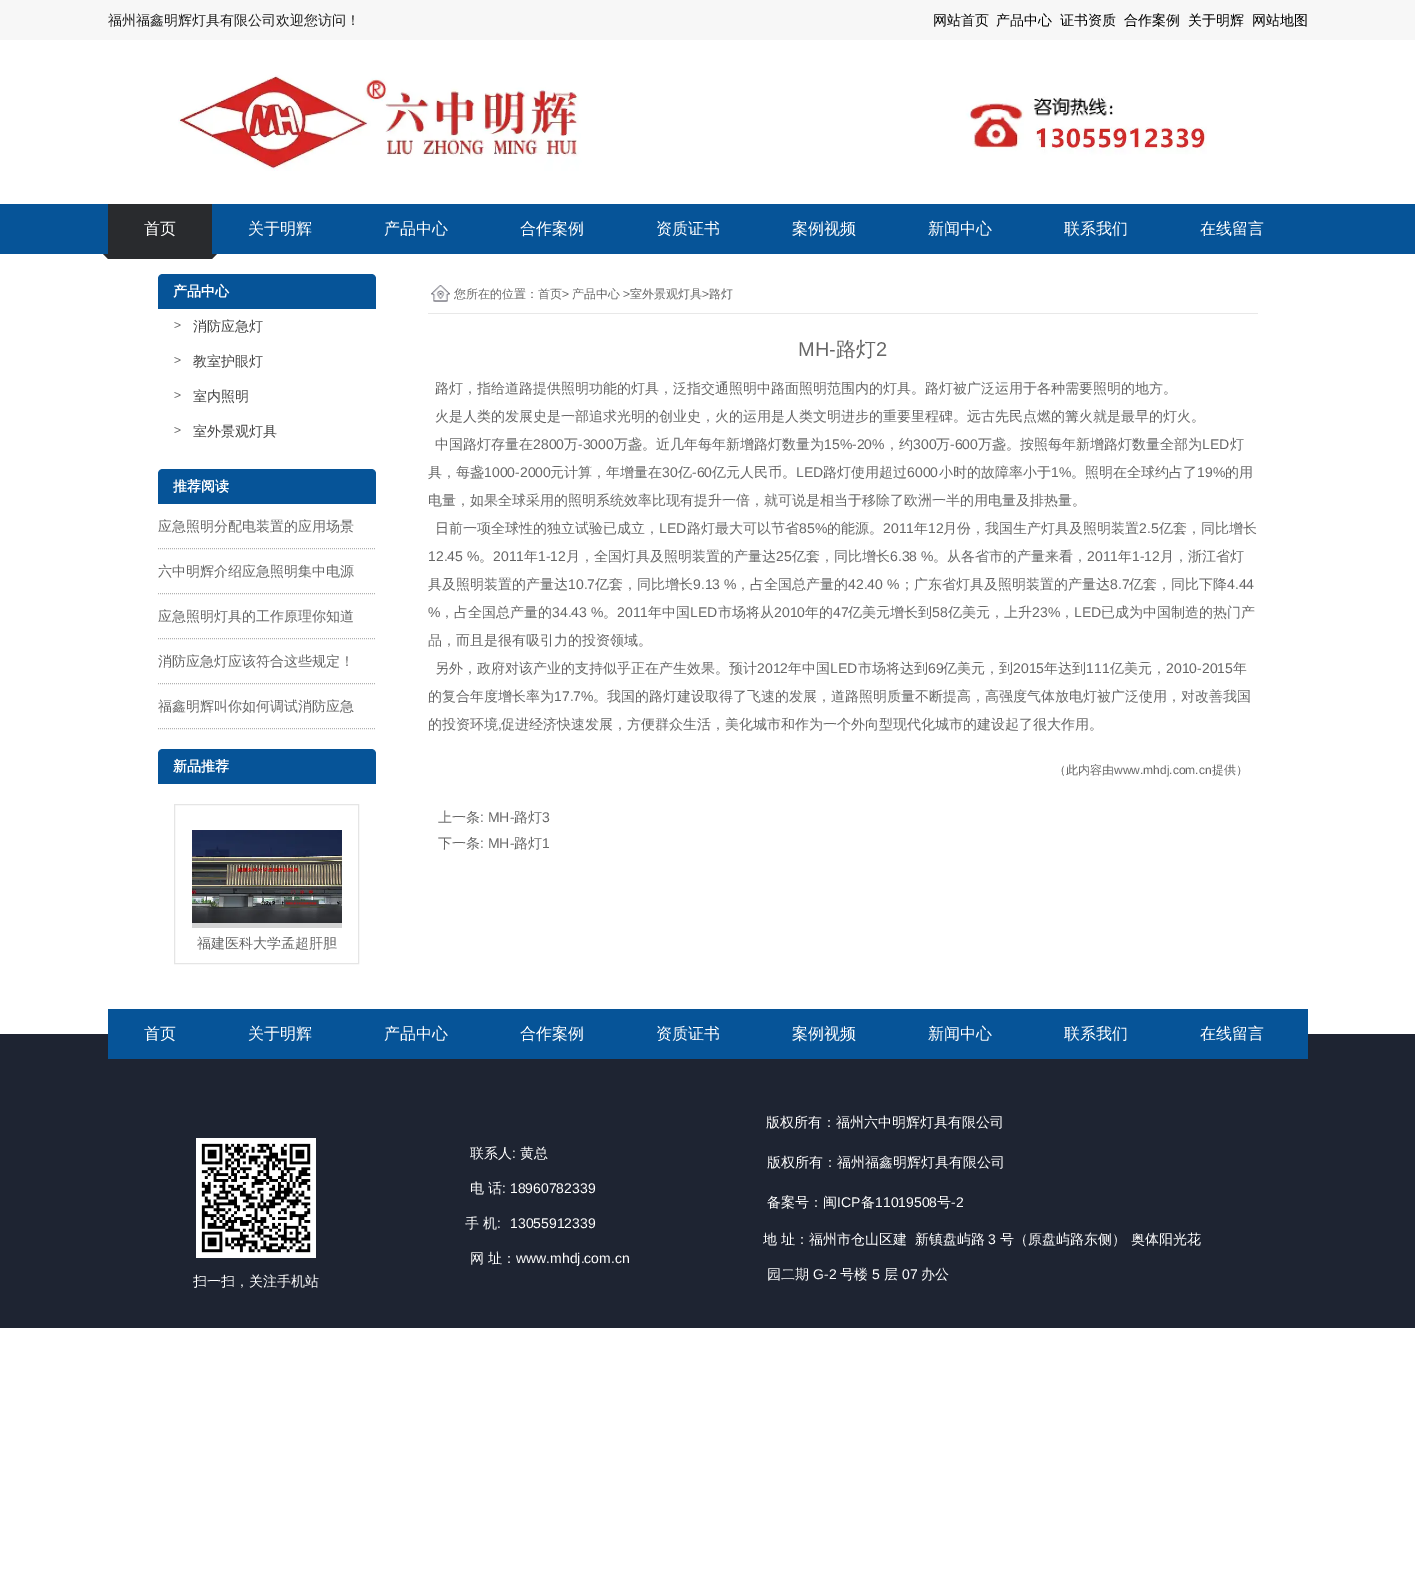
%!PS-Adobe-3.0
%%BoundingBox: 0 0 1415 1576
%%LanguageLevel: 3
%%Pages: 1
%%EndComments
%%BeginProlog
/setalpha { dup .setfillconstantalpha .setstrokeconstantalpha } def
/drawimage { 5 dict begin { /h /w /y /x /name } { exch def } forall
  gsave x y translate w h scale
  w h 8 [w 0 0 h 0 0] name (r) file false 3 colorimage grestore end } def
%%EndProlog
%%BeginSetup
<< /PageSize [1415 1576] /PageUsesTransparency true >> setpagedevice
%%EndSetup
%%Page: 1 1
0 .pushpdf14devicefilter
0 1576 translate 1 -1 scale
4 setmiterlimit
1 setgray
0 0 1415 1576 rectfill
0.969 setgray
0 0 1415 40 rectfill
(images/1.raw) 178 75 1029 96 drawimage
0.024 0.329 0.596 setrgbcolor
0 204 1415 50 rectfill
0.161 0.169 0.18 setrgbcolor
108 204 104 50 rectfill
newpath 103 254 moveto 217 254 lineto 212 259 lineto 108 259 lineto closepath fill
0.024 0.329 0.596 setrgbcolor
newpath 163 274 moveto 371 274 lineto 374 274 376 276 376 279 curveto 376 309 lineto 158 309 lineto 158 279 lineto 158 276 160 274 163 274 curveto closepath fill
newpath 163 469 moveto 371 469 lineto 374 469 376 471 376 474 curveto 376 504 lineto 158 504 lineto 158 474 lineto 158 471 160 469 163 469 curveto closepath fill
0.698 setgray
[1 1] 0 setdash
newpath 158 548.5 moveto 376 548.5 lineto stroke
newpath 158 593.5 moveto 376 593.5 lineto stroke
newpath 158 638.5 moveto 376 638.5 lineto stroke
newpath 158 683.5 moveto 376 683.5 lineto stroke
newpath 158 728.5 moveto 376 728.5 lineto stroke
0.024 0.329 0.596 setrgbcolor
newpath 163 749 moveto 371 749 lineto 374 749 376 751 376 754 curveto 376 784 lineto 158 784 lineto 158 754 lineto 158 751 160 749 163 749 curveto closepath fill
0.898 setgray
[] 0 setdash
174.5 804.5 184 159 rectstroke
(images/2.raw) 192 830 150 98 drawimage
0.8 setalpha
1 setgray
192 923 150 5 rectfill
1 setalpha
(images/3.raw) 431 285 19 17 drawimage
0.91 setgray
428 313 830 1 rectfill
0.118 0.141 0.196 setrgbcolor
0 1034 1415 294 rectfill
0.024 0.329 0.596 setrgbcolor
108 1009 1200 50 rectfill
(images/4.raw) 196 1138 120 120 drawimage
/WenQuanYiZenHei-Medium [14 0 0 -14 0 0] selectfont
0.114 setgray
108 25 moveto (福州福鑫明辉灯具有限公司欢迎您访问！) show
0 setgray
933 25 moveto (网站首页) show
996 25 moveto (产品中心) show
1060 25 moveto (证书资质) show
1124 25 moveto (合作案例) show
1188 25 moveto (关于明辉) show
1252 25 moveto (网站地图) show
/WenQuanYiZenHei-Medium [16 0 0 -16 0 0] selectfont
1 setgray
144 234 moveto (首页) show
248 234 moveto (关于明辉) show
384 234 moveto (产品中心) show
520 234 moveto (合作案例) show
656 234 moveto (资质证书) show
792 234 moveto (案例视频) show
928 234 moveto (新闻中心) show
1064 234 moveto (联系我们) show
1200 234 moveto (在线留言) show
/WenQuanYiZenHei-Bold [14 0 0 -14 0 0] selectfont
173 296 moveto (产品中心) show
/LiberationSans-Regular [12 0 0 -12 0 0] selectfont
0.4 setgray
174 329 moveto (>) show
/WenQuanYiZenHei-Medium [14 0 0 -14 0 0] selectfont
0.267 setgray
193 331 moveto (消防应急灯) show
/LiberationSans-Regular [12 0 0 -12 0 0] selectfont
0.4 setgray
174 364 moveto (>) show
/WenQuanYiZenHei-Medium [14 0 0 -14 0 0] selectfont
0.267 setgray
193 366 moveto (教室护眼灯) show
/LiberationSans-Regular [12 0 0 -12 0 0] selectfont
0.4 setgray
174 399 moveto (>) show
/WenQuanYiZenHei-Medium [14 0 0 -14 0 0] selectfont
0.267 setgray
193 401 moveto (室内照明) show
/LiberationSans-Regular [12 0 0 -12 0 0] selectfont
0.4 setgray
174 434 moveto (>) show
/WenQuanYiZenHei-Medium [14 0 0 -14 0 0] selectfont
0.267 setgray
193 436 moveto (室外景观灯具) show
/WenQuanYiZenHei-Bold [14 0 0 -14 0 0] selectfont
1 setgray
173 491 moveto (推荐阅读) show
/WenQuanYiZenHei-Medium [14 0 0 -14 0 0] selectfont
0.4 setgray
158 531 moveto (应急照明分配电装置的应用场景) show
158 576 moveto (六中明辉介绍应急照明集中电源) show
158 621 moveto (应急照明灯具的工作原理你知道) show
158 666 moveto (消防应急灯应该符合这些规定！) show
158 711 moveto (福鑫明辉叫你如何调试消防应急) show
/WenQuanYiZenHei-Bold [14 0 0 -14 0 0] selectfont
1 setgray
173 771 moveto (新品推荐) show
/WenQuanYiZenHei-Medium [14 0 0 -14 0 0] selectfont
0.4 setgray
197 948 moveto (福建医科大学孟超肝胆) show
/WenQuanYiZenHei-Medium [12 0 0 -12 0 0] selectfont
454 298 moveto (您所在的位置：首页) show
/LiberationSans-Regular [12 0 0 -12 0 0] selectfont
562 298 moveto (>) show
/WenQuanYiZenHei-Medium [12 0 0 -12 0 0] selectfont
572 298 moveto (产品中心) show
/LiberationSans-Regular [12 0 0 -12 0 0] selectfont
623 298 moveto (>) show
/WenQuanYiZenHei-Medium [12 0 0 -12 0 0] selectfont
630 298 moveto (室外景观灯具) show
/LiberationSans-Regular [12 0 0 -12 0 0] selectfont
702 298 moveto (>) show
/WenQuanYiZenHei-Medium [12 0 0 -12 0 0] selectfont
709 298 moveto (路灯) show
/LiberationSans-Regular [20 0 0 -20 0 0] selectfont
798 356 moveto (MH-) show
/WenQuanYiZenHei-Medium [20 0 0 -20 0 0] selectfont
836 356 moveto (路灯) show
/LiberationSans-Regular [20 0 0 -20 0 0] selectfont
876 356 moveto (2) show
/WenQuanYiZenHei-Medium [14 0 0 -14 0 0] selectfont
435 393 moveto (路灯，指给道路提供照明功能的灯具，泛指交通照明中路面照明范围内的灯具。路灯被广泛运用于各种需要照明的地方。) show
435 421 moveto (火是人类的发展史是一部追求光明的创业史，火的运用是人类文明进步的重要里程碑。远古先民点燃的篝火就是最早的灯火。) show
435 449 moveto (中国路灯存量在) show
/LiberationSans-Regular [14 0 0 -14 0 0] selectfont
533 449 moveto (2800) show
/WenQuanYiZenHei-Medium [14 0 0 -14 0 0] selectfont
564 449 moveto (万) show
/LiberationSans-Regular [14 0 0 -14 0 0] selectfont
578 449 moveto (-3000) show
/WenQuanYiZenHei-Medium [14 0 0 -14 0 0] selectfont
614 449 moveto (万盏。近几年每年新增路灯数量为) show
/LiberationSans-Regular [14 0 0 -14 0 0] selectfont
824 449 moveto (15%-20%) show
/WenQuanYiZenHei-Medium [14 0 0 -14 0 0] selectfont
885 449 moveto (，约) show
/LiberationSans-Regular [14 0 0 -14 0 0] selectfont
913 449 moveto (300) show
/WenQuanYiZenHei-Medium [14 0 0 -14 0 0] selectfont
936 449 moveto (万) show
/LiberationSans-Regular [14 0 0 -14 0 0] selectfont
950 449 moveto (-600) show
/WenQuanYiZenHei-Medium [14 0 0 -14 0 0] selectfont
978 449 moveto (万盏。按照每年新增路灯数量全部为) show
/LiberationSans-Regular [14 0 0 -14 0 0] selectfont
1202 449 moveto (LED) show
/WenQuanYiZenHei-Medium [14 0 0 -14 0 0] selectfont
1230 449 moveto (灯) show
428 477 moveto (具，每盏) show
/LiberationSans-Regular [14 0 0 -14 0 0] selectfont
484 477 moveto (1000-2000) show
/WenQuanYiZenHei-Medium [14 0 0 -14 0 0] selectfont
550 477 moveto (元计算，年增量在) show
/LiberationSans-Regular [14 0 0 -14 0 0] selectfont
662 477 moveto (30) show
/WenQuanYiZenHei-Medium [14 0 0 -14 0 0] selectfont
678 477 moveto (亿) show
/LiberationSans-Regular [14 0 0 -14 0 0] selectfont
692 477 moveto (-60) show
/WenQuanYiZenHei-Medium [14 0 0 -14 0 0] selectfont
712 477 moveto (亿元人民币。) show
/LiberationSans-Regular [14 0 0 -14 0 0] selectfont
796 477 moveto (LED) show
/WenQuanYiZenHei-Medium [14 0 0 -14 0 0] selectfont
823 477 moveto (路灯使用超过) show
/LiberationSans-Regular [14 0 0 -14 0 0] selectfont
907 477 moveto (6000) show
/WenQuanYiZenHei-Medium [14 0 0 -14 0 0] selectfont
939 477 moveto (小时的故障率小于) show
/LiberationSans-Regular [14 0 0 -14 0 0] selectfont
1051 477 moveto (1%) show
/WenQuanYiZenHei-Medium [14 0 0 -14 0 0] selectfont
1071 477 moveto (。照明在全球约占了) show
/LiberationSans-Regular [14 0 0 -14 0 0] selectfont
1197 477 moveto (19%) show
/WenQuanYiZenHei-Medium [14 0 0 -14 0 0] selectfont
1225 477 moveto (的用) show
428 505 moveto (电量，如果全球采用的照明系统效率比现有提升一倍，就可说是相当于移除了欧洲一半的用电量及排热量。) show
435 533 moveto (日前一项全球性的独立试验已成立，) show
/LiberationSans-Regular [14 0 0 -14 0 0] selectfont
659 533 moveto (LED) show
/WenQuanYiZenHei-Medium [14 0 0 -14 0 0] selectfont
687 533 moveto (路灯最大可以节省) show
/LiberationSans-Regular [14 0 0 -14 0 0] selectfont
799 533 moveto (85%) show
/WenQuanYiZenHei-Medium [14 0 0 -14 0 0] selectfont
827 533 moveto (的能源。) show
/LiberationSans-Regular [14 0 0 -14 0 0] selectfont
883 533 moveto (2011) show
/WenQuanYiZenHei-Medium [14 0 0 -14 0 0] selectfont
914 533 moveto (年) show
/LiberationSans-Regular [14 0 0 -14 0 0] selectfont
928 533 moveto (12) show
/WenQuanYiZenHei-Medium [14 0 0 -14 0 0] selectfont
943 533 moveto (月份，我国生产灯具及照明装置) show
/LiberationSans-Regular [14 0 0 -14 0 0] selectfont
1139 533 moveto (2.5) show
/WenQuanYiZenHei-Medium [14 0 0 -14 0 0] selectfont
1159 533 moveto (亿套，同比增长) show
/LiberationSans-Regular [14 0 0 -14 0 0] selectfont
428 561 moveto (12.45 %) show
/WenQuanYiZenHei-Medium [14 0 0 -14 0 0] selectfont
479 561 moveto (。) show
/LiberationSans-Regular [14 0 0 -14 0 0] selectfont
493 561 moveto (2011) show
/WenQuanYiZenHei-Medium [14 0 0 -14 0 0] selectfont
524 561 moveto (年) show
/LiberationSans-Regular [14 0 0 -14 0 0] selectfont
538 561 moveto (1-12) show
/WenQuanYiZenHei-Medium [14 0 0 -14 0 0] selectfont
566 561 moveto (月，全国灯具及照明装置的产量达) show
/LiberationSans-Regular [14 0 0 -14 0 0] selectfont
776 561 moveto (25) show
/WenQuanYiZenHei-Medium [14 0 0 -14 0 0] selectfont
792 561 moveto (亿套，同比增长) show
/LiberationSans-Regular [14 0 0 -14 0 0] selectfont
890 561 moveto (6.38 %) show
/WenQuanYiZenHei-Medium [14 0 0 -14 0 0] selectfont
933 561 moveto (。从各省市的产量来看，) show
/LiberationSans-Regular [14 0 0 -14 0 0] selectfont
1087 561 moveto (2011) show
/WenQuanYiZenHei-Medium [14 0 0 -14 0 0] selectfont
1118 561 moveto (年) show
/LiberationSans-Regular [14 0 0 -14 0 0] selectfont
1132 561 moveto (1-12) show
/WenQuanYiZenHei-Medium [14 0 0 -14 0 0] selectfont
1160 561 moveto (月，浙江省灯) show
428 589 moveto (具及照明装置的产量达) show
/LiberationSans-Regular [14 0 0 -14 0 0] selectfont
568 589 moveto (10.7) show
/WenQuanYiZenHei-Medium [14 0 0 -14 0 0] selectfont
595 589 moveto (亿套，同比增长) show
/LiberationSans-Regular [14 0 0 -14 0 0] selectfont
693 589 moveto (9.13 %) show
/WenQuanYiZenHei-Medium [14 0 0 -14 0 0] selectfont
736 589 moveto (，占全国总产量的) show
/LiberationSans-Regular [14 0 0 -14 0 0] selectfont
848 589 moveto (42.40 %) show
/WenQuanYiZenHei-Medium [14 0 0 -14 0 0] selectfont
900 589 moveto (；广东省灯具及照明装置的产量达) show
/LiberationSans-Regular [14 0 0 -14 0 0] selectfont
1110 589 moveto (8.7) show
/WenQuanYiZenHei-Medium [14 0 0 -14 0 0] selectfont
1129 589 moveto (亿套，同比下降) show
/LiberationSans-Regular [14 0 0 -14 0 0] selectfont
1227 589 moveto (4.44) show
428 617 moveto (%) show
/WenQuanYiZenHei-Medium [14 0 0 -14 0 0] selectfont
440 617 moveto (，占全国总产量的) show
/LiberationSans-Regular [14 0 0 -14 0 0] selectfont
552 617 moveto (34.43 %) show
/WenQuanYiZenHei-Medium [14 0 0 -14 0 0] selectfont
603 617 moveto (。) show
/LiberationSans-Regular [14 0 0 -14 0 0] selectfont
617 617 moveto (2011) show
/WenQuanYiZenHei-Medium [14 0 0 -14 0 0] selectfont
648 617 moveto (年中国) show
/LiberationSans-Regular [14 0 0 -14 0 0] selectfont
690 617 moveto (LED) show
/WenQuanYiZenHei-Medium [14 0 0 -14 0 0] selectfont
718 617 moveto (市场将从) show
/LiberationSans-Regular [14 0 0 -14 0 0] selectfont
774 617 moveto (2010) show
/WenQuanYiZenHei-Medium [14 0 0 -14 0 0] selectfont
805 617 moveto (年的) show
/LiberationSans-Regular [14 0 0 -14 0 0] selectfont
833 617 moveto (47) show
/WenQuanYiZenHei-Medium [14 0 0 -14 0 0] selectfont
848 617 moveto (亿美元增长到) show
/LiberationSans-Regular [14 0 0 -14 0 0] selectfont
932 617 moveto (58) show
/WenQuanYiZenHei-Medium [14 0 0 -14 0 0] selectfont
948 617 moveto (亿美元，上升) show
/LiberationSans-Regular [14 0 0 -14 0 0] selectfont
1032 617 moveto (23%) show
/WenQuanYiZenHei-Medium [14 0 0 -14 0 0] selectfont
1060 617 moveto (，) show
/LiberationSans-Regular [14 0 0 -14 0 0] selectfont
1074 617 moveto (LED) show
/WenQuanYiZenHei-Medium [14 0 0 -14 0 0] selectfont
1101 617 moveto (已成为中国制造的热门产) show
428 645 moveto (品，而且是很有吸引力的投资领域。) show
435 673 moveto (另外，政府对该产业的支持似乎正在产生效果。预计) show
/LiberationSans-Regular [14 0 0 -14 0 0] selectfont
757 673 moveto (2012) show
/WenQuanYiZenHei-Medium [14 0 0 -14 0 0] selectfont
788 673 moveto (年中国) show
/LiberationSans-Regular [14 0 0 -14 0 0] selectfont
830 673 moveto (LED) show
/WenQuanYiZenHei-Medium [14 0 0 -14 0 0] selectfont
858 673 moveto (市场将达到) show
/LiberationSans-Regular [14 0 0 -14 0 0] selectfont
928 673 moveto (69) show
/WenQuanYiZenHei-Medium [14 0 0 -14 0 0] selectfont
943 673 moveto (亿美元，到) show
/LiberationSans-Regular [14 0 0 -14 0 0] selectfont
1013 673 moveto (2015) show
/WenQuanYiZenHei-Medium [14 0 0 -14 0 0] selectfont
1044 673 moveto (年达到) show
/LiberationSans-Regular [14 0 0 -14 0 0] selectfont
1086 673 moveto (111) show
/WenQuanYiZenHei-Medium [14 0 0 -14 0 0] selectfont
1110 673 moveto (亿美元，) show
/LiberationSans-Regular [14 0 0 -14 0 0] selectfont
1166 673 moveto (2010-2015) show
/WenQuanYiZenHei-Medium [14 0 0 -14 0 0] selectfont
1233 673 moveto (年) show
428 701 moveto (的复合年度增长率为) show
/LiberationSans-Regular [14 0 0 -14 0 0] selectfont
554 701 moveto (17.7%) show
/WenQuanYiZenHei-Medium [14 0 0 -14 0 0] selectfont
593 701 moveto (。我国的路灯建设取得了飞速的发展，道路照明质量不断提高，高强度气体放电灯被广泛使用，对改善我国) show
428 729 moveto (的投资环境) show
/LiberationSans-Regular [14 0 0 -14 0 0] selectfont
498 729 moveto (,) show
/WenQuanYiZenHei-Medium [14 0 0 -14 0 0] selectfont
501 729 moveto (促进经济快速发展，方便群众生活，美化城市和作为一个外向型现代化城市的建设起了很大作用。) show
/WenQuanYiZenHei-Medium [12 0 0 -12 0 0] selectfont
1054 774 moveto (（此内容由) show
/LiberationSans-Regular [12 0 0 -12 0 0] selectfont
1114 774 moveto (www.mhdj.com.cn) show
/WenQuanYiZenHei-Medium [12 0 0 -12 0 0] selectfont
1212 774 moveto (提供）) show
/WenQuanYiZenHei-Medium [14 0 0 -14 0 0] selectfont
438 822 moveto (上一条) show
/LiberationSans-Regular [14 0 0 -14 0 0] selectfont
480 822 moveto (: MH-) show
/WenQuanYiZenHei-Medium [14 0 0 -14 0 0] selectfont
514 822 moveto (路灯) show
/LiberationSans-Regular [14 0 0 -14 0 0] selectfont
542 822 moveto (3) show
/WenQuanYiZenHei-Medium [14 0 0 -14 0 0] selectfont
438 848 moveto (下一条) show
/LiberationSans-Regular [14 0 0 -14 0 0] selectfont
480 848 moveto (: MH-) show
/WenQuanYiZenHei-Medium [14 0 0 -14 0 0] selectfont
514 848 moveto (路灯) show
/LiberationSans-Regular [14 0 0 -14 0 0] selectfont
542 848 moveto (1) show
/WenQuanYiZenHei-Medium [16 0 0 -16 0 0] selectfont
1 setgray
144 1039 moveto (首页) show
248 1039 moveto (关于明辉) show
384 1039 moveto (产品中心) show
520 1039 moveto (合作案例) show
656 1039 moveto (资质证书) show
792 1039 moveto (案例视频) show
928 1039 moveto (新闻中心) show
1064 1039 moveto (联系我们) show
1200 1039 moveto (在线留言) show
/WenQuanYiZenHei-Medium [14 0 0 -14 0 0] selectfont
470 1158 moveto (联系人) show
/LiberationSans-Regular [14 0 0 -14 0 0] selectfont
512 1158 moveto (:) show
/WenQuanYiZenHei-Medium [14 0 0 -14 0 0] selectfont
520 1158 moveto (黄总) show
470 1193 moveto (电) show
488 1193 moveto (话) show
/LiberationSans-Regular [14 0 0 -14 0 0] selectfont
502 1193 moveto (: 18960782339) show
/WenQuanYiZenHei-Medium [14 0 0 -14 0 0] selectfont
465 1228 moveto (手 机) show
/LiberationSans-Regular [14 0 0 -14 0 0] selectfont
497 1228 moveto (:) show
510 1228 moveto (13055912339) show
/WenQuanYiZenHei-Medium [14 0 0 -14 0 0] selectfont
470 1263 moveto (网 址：) show
/LiberationSans-Regular [14 0 0 -14 0 0] selectfont
516 1263 moveto (www.mhdj.com.cn) show
/WenQuanYiZenHei-Medium [14 0 0 -14 0 0] selectfont
766 1127 moveto (版权所有：福州六中明辉灯具有限公司) show
767 1167 moveto (版权所有：福州福鑫明辉灯具有限公司) show
767 1207 moveto (备案号：闽) show
/LiberationSans-Regular [14 0 0 -14 0 0] selectfont
837 1207 moveto (ICP) show
/WenQuanYiZenHei-Medium [14 0 0 -14 0 0] selectfont
861 1207 moveto (备) show
/LiberationSans-Regular [14 0 0 -14 0 0] selectfont
875 1207 moveto (11019508) show
/WenQuanYiZenHei-Medium [14 0 0 -14 0 0] selectfont
937 1207 moveto (号) show
/LiberationSans-Regular [14 0 0 -14 0 0] selectfont
951 1207 moveto (-2) show
/WenQuanYiZenHei-Medium [14 0 0 -14 0 0] selectfont
763 1244 moveto (地 址：福州市仓山区建) show
915 1244 moveto (新镇盘屿路) show
/LiberationSans-Regular [14 0 0 -14 0 0] selectfont
988 1244 moveto (3) show
/WenQuanYiZenHei-Medium [14 0 0 -14 0 0] selectfont
1000 1244 moveto (号（原盘屿路东侧）) show
1131 1244 moveto (奥体阳光花) show
767 1279 moveto (园二期) show
/LiberationSans-Regular [14 0 0 -14 0 0] selectfont
813 1279 moveto (G-2) show
/WenQuanYiZenHei-Medium [14 0 0 -14 0 0] selectfont
840 1279 moveto (号楼) show
/LiberationSans-Regular [14 0 0 -14 0 0] selectfont
872 1279 moveto (5) show
/WenQuanYiZenHei-Medium [14 0 0 -14 0 0] selectfont
884 1279 moveto (层) show
/LiberationSans-Regular [14 0 0 -14 0 0] selectfont
902 1279 moveto (07) show
/WenQuanYiZenHei-Medium [14 0 0 -14 0 0] selectfont
921 1279 moveto (办公) show
193 1286 moveto (扫一扫，关注手机站) show
.poppdf14devicefilter showpage
%%EOF
